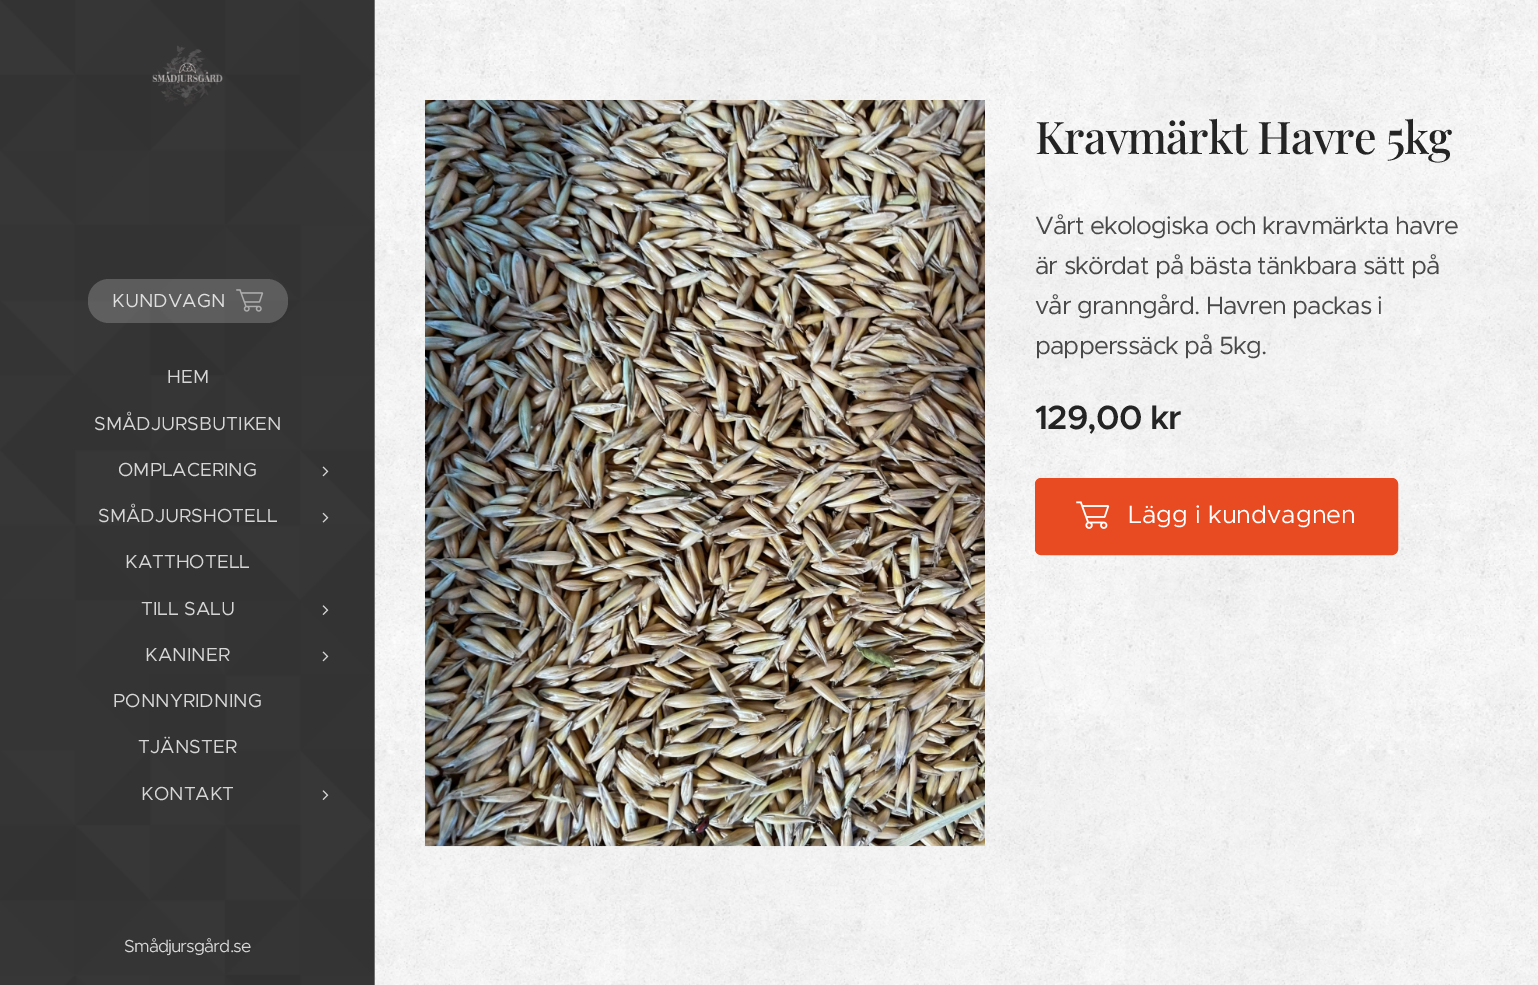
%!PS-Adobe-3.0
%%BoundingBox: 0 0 1538 985
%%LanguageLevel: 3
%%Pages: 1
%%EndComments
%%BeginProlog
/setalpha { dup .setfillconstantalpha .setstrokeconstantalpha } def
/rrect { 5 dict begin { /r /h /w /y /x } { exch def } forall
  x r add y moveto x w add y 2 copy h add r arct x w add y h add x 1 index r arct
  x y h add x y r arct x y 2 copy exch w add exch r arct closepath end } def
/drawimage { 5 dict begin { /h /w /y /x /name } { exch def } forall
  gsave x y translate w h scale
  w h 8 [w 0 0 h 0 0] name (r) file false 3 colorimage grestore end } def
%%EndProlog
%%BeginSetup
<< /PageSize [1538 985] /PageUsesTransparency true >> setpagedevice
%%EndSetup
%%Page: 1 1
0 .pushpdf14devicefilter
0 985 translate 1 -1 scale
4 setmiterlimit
1 setgray
0 0 1538 985 rectfill
(images/1.raw) 0 0 375 985 drawimage
(images/2.raw) 152 45 71 62 drawimage
0.2 setalpha
88 279 200 44 21 rrect fill
1 setalpha
(images/3.raw) 236 289 28 23 drawimage
(images/4.raw) 322 466 7 11 drawimage
(images/5.raw) 322 512 7 11 drawimage
(images/6.raw) 322 605 7 10 drawimage
(images/7.raw) 322 651 7 11 drawimage
(images/8.raw) 322 790 7 10 drawimage
0.3 setalpha
374 0 1 985 rectfill
1 setalpha
(images/9.raw) 375 0 1163 985 drawimage
(images/10.raw) 425 100 560 747 drawimage
0.91 0.294 0.129 setrgbcolor
1035.5 478.5 362 76 5.5 rrect gsave fill grestore
stroke
(images/11.raw) 1076 501 34 28 drawimage
/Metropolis-Regular [19 0 0 -19 0 0] selectfont
0.875 setgray
112 307 moveto (KUNDVAGN) show
0.839 setgray
167 383 moveto (HEM) show
94 430 moveto (SMÅDJURSBUTIKEN) show
118 476 moveto (OMPLACERING) show
98 522 moveto (SMÅDJURSHOTELL) show
125 568 moveto (KATTHOTELL) show
141 615 moveto (TILL SALU) show
145 661 moveto (KANINER) show
113 707 moveto (PONNYRIDNING) show
138 753 moveto (TJÄNSTER) show
141 800 moveto (KONTAKT) show
/PlayfairDisplay-Medium [45 0 0 -45 0 0] selectfont
0.141 setgray
1035 154 moveto -0.9 0 (Kravmärkt Havre 5kg) ashow
/Metropolis-Regular [25 0 0 -25 0 0] selectfont
0.286 setgray
1035 234 moveto -0.9 0 (Vårt ekologiska och kravmärkta havre) ashow
1035 274 moveto -0.9 0 (är skördat på bästa tänkbara sätt på) ashow
1035 314 moveto -0.9 0 (vår granngård. Havren packas i) ashow
1035 354 moveto -0.9 0 (papperssäck på 5kg.) ashow
/Metropolis-SemiBold [33.75 0 0 -33.75 0 0] selectfont
0.141 setgray
1035 429 moveto -0.9 0 (129,00 kr) ashow
/Metropolis-Regular [25 0 0 -25 0 0] selectfont
1 setgray
1128 523 moveto (Lägg i kundvagnen) show
/Metropolis-Regular [17.5 0 0 -17.5 0 0] selectfont
0.839 setgray
124 952 moveto -0.9 0 (Smådjursgård.se) ashow
.poppdf14devicefilter showpage
%%EOF
